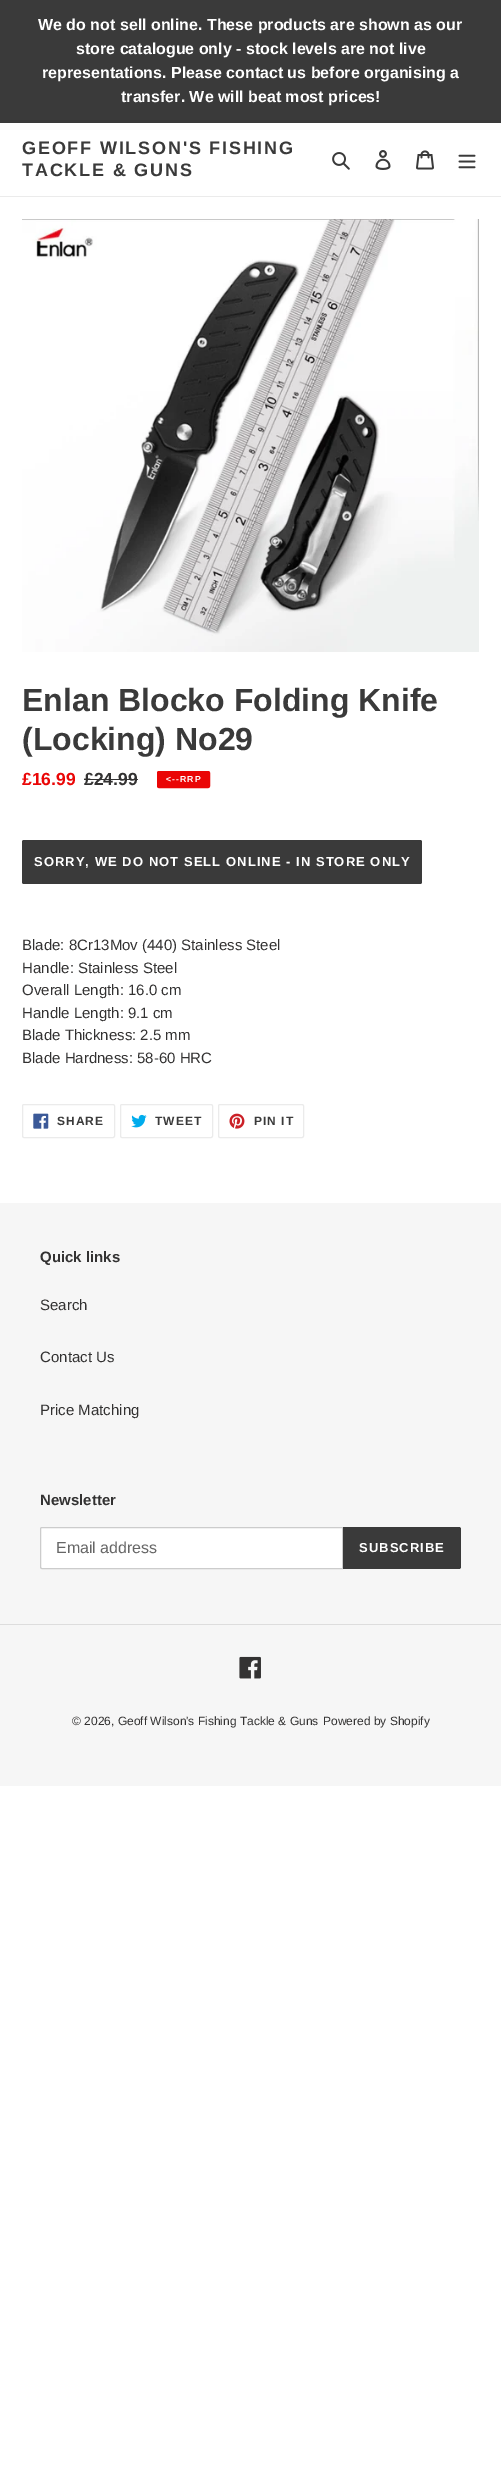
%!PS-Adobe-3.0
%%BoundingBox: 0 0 501 2468
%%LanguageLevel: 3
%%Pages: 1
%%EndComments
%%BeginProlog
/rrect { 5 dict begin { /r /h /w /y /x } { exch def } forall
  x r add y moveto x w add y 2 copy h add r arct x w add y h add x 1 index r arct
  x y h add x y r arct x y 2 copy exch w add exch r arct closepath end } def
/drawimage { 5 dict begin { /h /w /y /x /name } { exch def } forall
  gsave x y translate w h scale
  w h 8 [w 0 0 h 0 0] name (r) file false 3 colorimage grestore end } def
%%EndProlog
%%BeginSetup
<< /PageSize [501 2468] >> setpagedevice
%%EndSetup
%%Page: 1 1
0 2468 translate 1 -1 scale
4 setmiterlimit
1 setgray
0 0 501 2468 rectfill
0.227 setgray
0 0 501 123 rectfill
0.922 setgray
0 196 501 1 rectfill
(images/1.raw) 332 152 18 18 drawimage
(images/2.raw) 375 150 16 20 drawimage
(images/3.raw) 416 150 18 20 drawimage
(images/4.raw) 458 154 18 15 drawimage
(images/5.raw) 22 219 457 433 drawimage
0.2 0.196 0.196 setrgbcolor
84 779 54 1 rectfill
0.918 0.024 0.024 setrgbcolor
157.5 771.5 52 16 1.5 rrect gsave fill grestore
stroke
0.227 setgray
22 840 400 44 2 rrect fill
0.922 setgray
22.5 1104.5 92 33 1.5 rrect stroke
(images/6.raw) 33 1113 16 16 drawimage
120.5 1104.5 92 33 1.5 rrect stroke
(images/7.raw) 131 1114 16 14 drawimage
218.5 1104.5 85 33 1.5 rrect stroke
(images/8.raw) 229 1113 16 16 drawimage
0.965 setgray
0 1203 501 583 rectfill
1 setgray
newpath 42 1527.5 moveto 342.5 1527.5 lineto 342.5 1568.5 lineto 42 1568.5 lineto 41 1568.5 40.5 1568 40.5 1567 curveto 40.5 1529 lineto 40.5 1528 41 1527.5 42 1527.5 curveto closepath gsave fill grestore
0.8 setgray
stroke
0.227 setgray
newpath 343 1527 moveto 459 1527 lineto 460 1527 461 1528 461 1529 curveto 461 1567 lineto 461 1568 460 1569 459 1569 curveto 343 1569 lineto closepath fill
0.867 setgray
0 1624 501 1 rectfill
(images/9.raw) 239 1656 22 23 drawimage
/LiberationSans-Bold [16 0 0 -16 0 0] selectfont
1 setgray
38 30 moveto (We do not sell online. These products are shown as our) show
76 54 moveto (store catalogue only - stock levels are not live) show
42 78 moveto (representations. Please contact us before organising a) show
121 102 moveto (transfer. We will beat most prices!) show
/LiberationSans-Bold [18 0 0 -18 0 0] selectfont
0.227 setgray
22 154 moveto 1.8 0 (GEOFF WILSON'S FISHING) ashow
22 176 moveto 1.8 0 (TACKLE & GUNS) ashow
/LiberationSans-Bold [32 0 0 -32 0 0] selectfont
22 711 moveto (Enlan Blocko Folding Knife) show
22 750 moveto (\(Locking\) No29) show
/LiberationSans-Bold [17.5 0 0 -17.5 0 0] selectfont
0.918 0.024 0.024 setrgbcolor
22 785 moveto (£16.99) show
0.2 0.196 0.196 setrgbcolor
84 785 moveto (£24.99) show
/LiberationSans-Bold [8.75 0 0 -8.75 0 0] selectfont
1 setgray
166 782 moveto 1 0 (<--RRP) ashow
/LiberationSans-Bold [13 0 0 -13 0 0] selectfont
34 866 moveto 1.05 0 (SORRY, WE DO NOT SELL ONLINE - IN STORE ONLY) ashow
/LiberationSans-Regular [15 0 0 -15 0 0] selectfont
0.2 0.196 0.196 setrgbcolor
22 950 moveto (Blade: 8Cr13Mov \(440\) Stainless Steel) show
22 973 moveto (Handle: Stainless Steel) show
22 995 moveto (Overall Length: 16.0 cm) show
22 1018 moveto (Handle Length: 9.1 cm) show
22 1040 moveto (Blade Thickness: 2.5 mm) show
22 1063 moveto (Blade Hardness: 58-60 HRC) show
/LiberationSans-Bold [12 0 0 -12 0 0] selectfont
0.227 setgray
57 1125 moveto 1 0 (SHARE) ashow
155 1125 moveto 1 0 (TWEET) ashow
254 1125 moveto 1 0 (PIN IT) ashow
/LiberationSans-Bold [15 0 0 -15 0 0] selectfont
0.2 0.196 0.196 setrgbcolor
40 1262 moveto (Quick links) show
/LiberationSans-Regular [15 0 0 -15 0 0] selectfont
40 1310 moveto (Search) show
40 1362 moveto (Contact Us) show
40 1415 moveto (Price Matching) show
/LiberationSans-Bold [15 0 0 -15 0 0] selectfont
40 1505 moveto (Newsletter) show
/LiberationSans-Regular [16 0 0 -16 0 0] selectfont
0.4 setgray
56 1553 moveto (Email address) show
/LiberationSans-Bold [13 0 0 -13 0 0] selectfont
1 setgray
359 1552 moveto 1.05 0 (SUBSCRIBE) ashow
/LiberationSans-Regular [12 0 0 -12 0 0] selectfont
0.2 0.196 0.196 setrgbcolor
72 1725 moveto (© 2026, Geoff Wilson's Fishing Tackle & Guns) show
323 1725 moveto (Powered by Shopify) show
showpage
%%EOF
